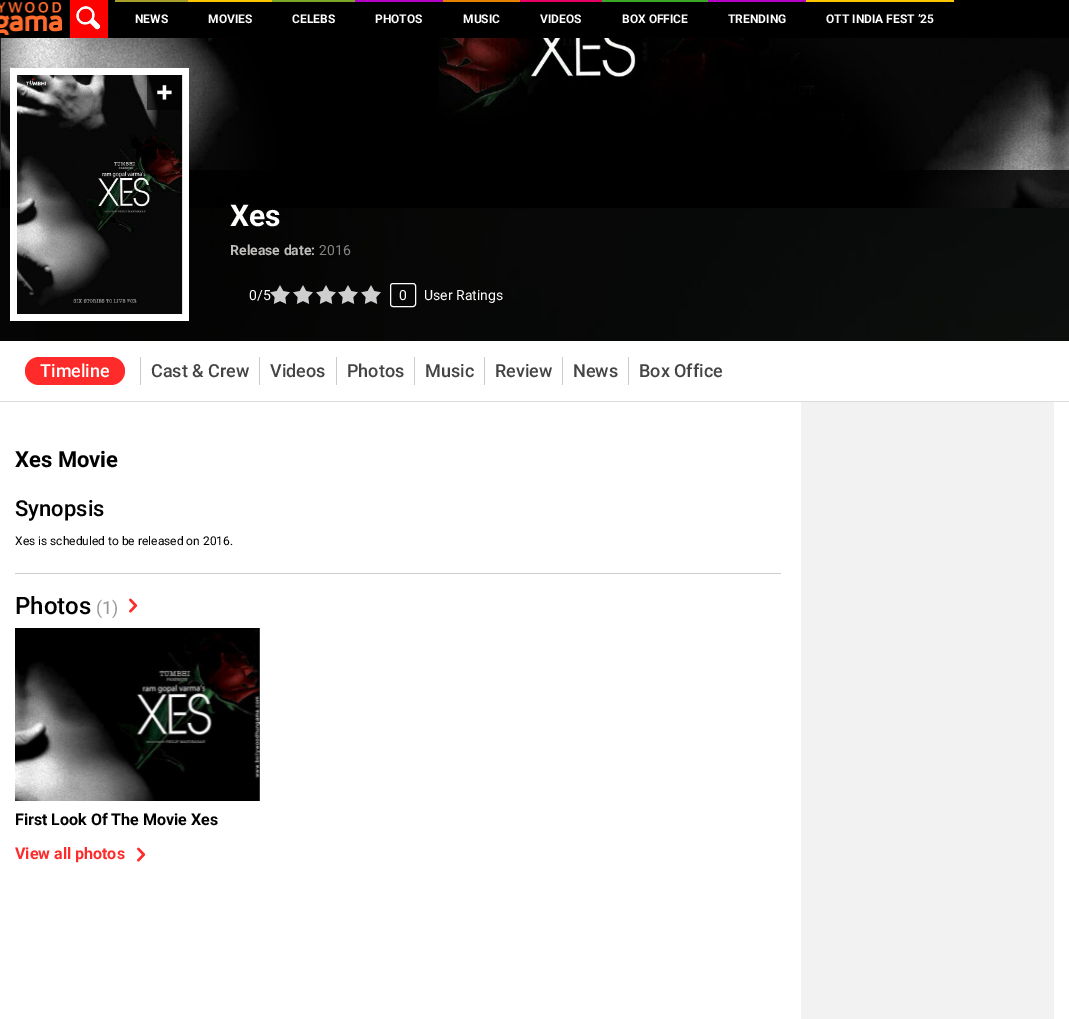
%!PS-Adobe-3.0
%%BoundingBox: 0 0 1069 1019
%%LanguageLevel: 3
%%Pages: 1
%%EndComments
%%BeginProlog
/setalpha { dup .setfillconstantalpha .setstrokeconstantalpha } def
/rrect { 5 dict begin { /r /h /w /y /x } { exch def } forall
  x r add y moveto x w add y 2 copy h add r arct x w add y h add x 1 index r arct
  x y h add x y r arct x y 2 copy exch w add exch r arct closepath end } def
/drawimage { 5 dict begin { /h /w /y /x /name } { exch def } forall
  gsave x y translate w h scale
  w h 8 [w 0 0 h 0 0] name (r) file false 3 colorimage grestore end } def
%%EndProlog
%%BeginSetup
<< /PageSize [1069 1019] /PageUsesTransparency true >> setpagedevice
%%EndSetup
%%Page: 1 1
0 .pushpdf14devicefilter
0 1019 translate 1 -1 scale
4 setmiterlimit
1 setgray
0 0 1069 1019 rectfill
(images/1.raw) 0 38 1069 303 drawimage
0 setgray
0 0 1069 38 rectfill
(images/2.raw) 0 2 62 33 drawimage
1 0 0 setrgbcolor
70 0 38 38 rectfill
(images/3.raw) 76 6 25 24 drawimage
0.651 0.627 0.157 setrgbcolor
115 0 73 2 rectfill
1 0.773 0.004 setrgbcolor
188 0 84 2 rectfill
0.49 0.655 0.161 setrgbcolor
272 0 83 2 rectfill
0.706 0.012 0.773 setrgbcolor
355 0 88 2 rectfill
0.906 0.51 0 setrgbcolor
443 0 77 2 rectfill
0.902 0 0.396 setrgbcolor
520 0 82 2 rectfill
0.227 0.655 0.149 setrgbcolor
602 0 106 2 rectfill
0.706 0.012 0.773 setrgbcolor
708 0 98 2 rectfill
1 0.773 0.004 setrgbcolor
806 0 148 2 rectfill
(images/4.raw) 1 38 1068 170 drawimage
0.85 setalpha
0 setgray
0 170 1069 171 rectfill
1 setalpha
1 setgray
10 68 179 253 rectfill
(images/5.raw) 17 75 165 239 drawimage
(images/6.raw) 17 75 166 239 drawimage
0.6 setalpha
0 setgray
147 75 35 35 rectfill
1 setalpha
(images/7.raw) 157 85 15 15 drawimage
(images/8.raw) 270 285 111 19 drawimage
1 setgray
390.5 283.5 25 23 2.5 rrect stroke
0.859 setgray
0 401 1069 1 rectfill
1 0.169 0.169 setrgbcolor
25 357 100 28 14 rrect fill
0.8 setgray
140 357 1 28 rectfill
259 357 1 28 rectfill
336 357 1 28 rectfill
414 357 1 28 rectfill
484 357 1 28 rectfill
562 357 1 28 rectfill
628 357 1 28 rectfill
15 573 766 1 rectfill
(images/9.raw) 129 598 9 15 drawimage
(images/10.raw) 15 628 245 173 drawimage
(images/9.raw) 137 847 9 15 drawimage
0.949 setgray
801 402 253 617 rectfill
/Roboto-Bold [12 0 0 -12 0 0] selectfont
1 setgray
135 23 moveto (NEWS) show
208 23 moveto (MOVIES) show
292 23 moveto (CELEBS) show
375 23 moveto (PHOTOS) show
463 23 moveto (MUSIC) show
540 23 moveto (VIDEOS) show
622 23 moveto (BOX OFFICE) show
728 23 moveto (TRENDING) show
826 23 moveto (OTT INDIA FEST ’25) show
/Roboto-Bold [30 0 0 -30 0 0] selectfont
230 226 moveto (Xes) show
/Roboto-Bold [14 0 0 -14 0 0] selectfont
0.749 0.745 0.733 setrgbcolor
230 255 moveto (Release date:) show
/Roboto-Regular [14 0 0 -14 0 0] selectfont
0.522 setgray
319 255 moveto (2016) show
1 setgray
249 300 moveto (0/5) show
399 300 moveto (0) show
424 300 moveto (User Ratings) show
/Roboto-Medium [18 0 0 -18 0 0] selectfont
40 377 moveto (Timeline) show
0.267 setgray
151 377 moveto (Cast & Crew) show
270 377 moveto (Videos) show
347 377 moveto (Photos) show
425 377 moveto (Music) show
495 377 moveto (Review) show
573 377 moveto (News) show
639 377 moveto (Box Office) show
/Roboto-Bold [22 0 0 -22 0 0] selectfont
0 setgray
15 467 moveto (Xes Movie) show
/Roboto-Medium [22 0 0 -22 0 0] selectfont
15 516 moveto (Synopsis) show
/Roboto-Regular [12 0 0 -12 0 0] selectfont
15 545 moveto (Xes is scheduled to be released on 2016.) show
/Roboto-Medium [24 0 0 -24 0 0] selectfont
15 614 moveto (Photos) show
/Roboto-Regular [18 0 0 -18 0 0] selectfont
0.6 setgray
96 614 moveto (\(1\)) show
/Roboto-Bold [16 0 0 -16 0 0] selectfont
0 setgray
15 825 moveto (First Look Of The Movie Xes) show
1 0.169 0.169 setrgbcolor
15 859 moveto (View all photos) show
.poppdf14devicefilter showpage
%%EOF
